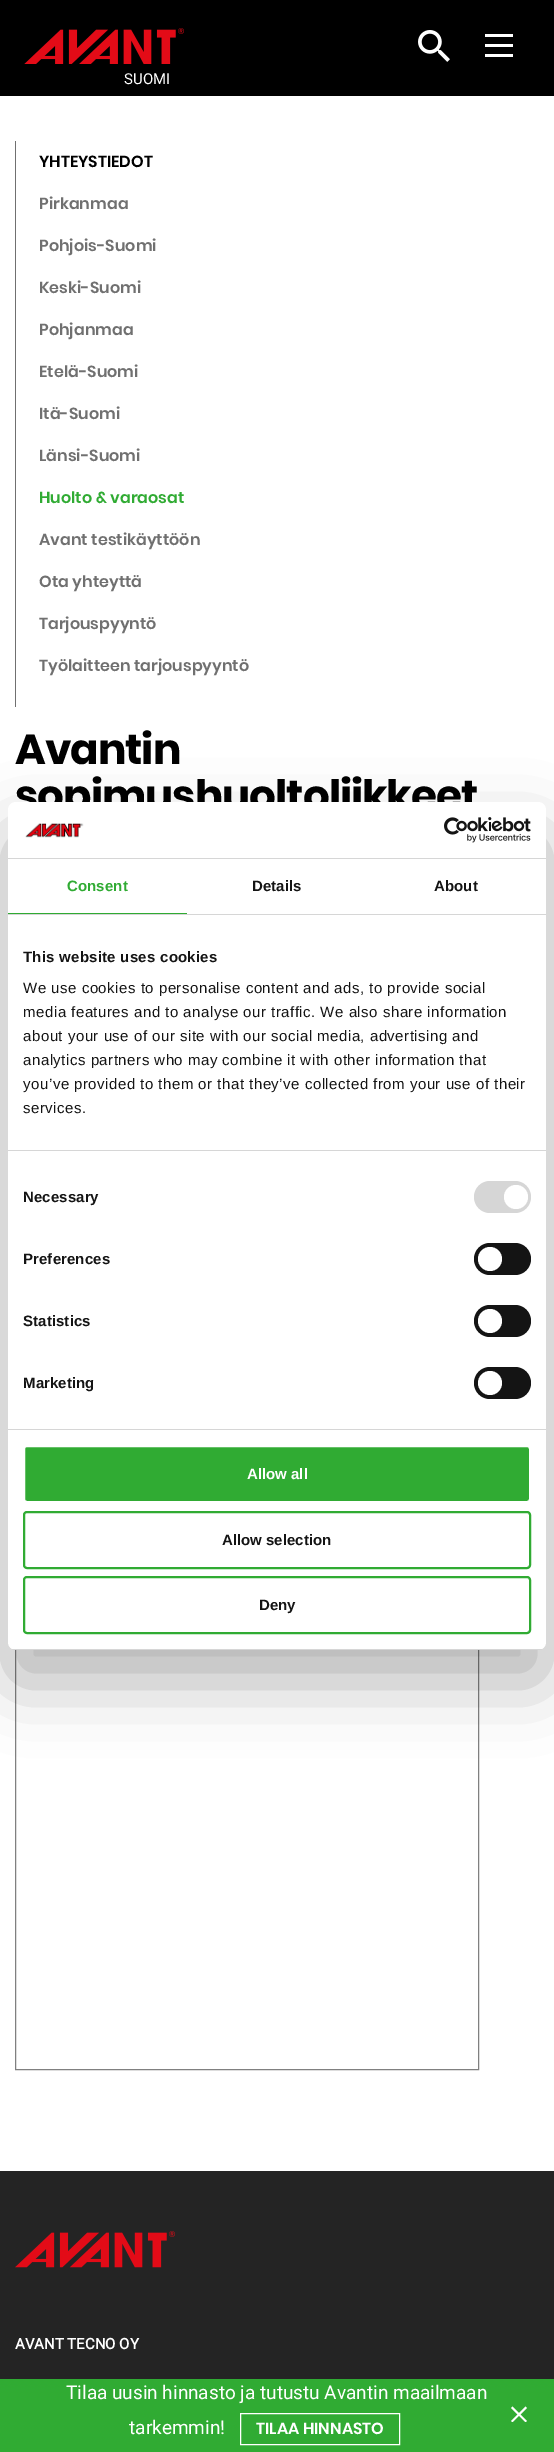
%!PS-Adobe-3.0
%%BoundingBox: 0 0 554 2452
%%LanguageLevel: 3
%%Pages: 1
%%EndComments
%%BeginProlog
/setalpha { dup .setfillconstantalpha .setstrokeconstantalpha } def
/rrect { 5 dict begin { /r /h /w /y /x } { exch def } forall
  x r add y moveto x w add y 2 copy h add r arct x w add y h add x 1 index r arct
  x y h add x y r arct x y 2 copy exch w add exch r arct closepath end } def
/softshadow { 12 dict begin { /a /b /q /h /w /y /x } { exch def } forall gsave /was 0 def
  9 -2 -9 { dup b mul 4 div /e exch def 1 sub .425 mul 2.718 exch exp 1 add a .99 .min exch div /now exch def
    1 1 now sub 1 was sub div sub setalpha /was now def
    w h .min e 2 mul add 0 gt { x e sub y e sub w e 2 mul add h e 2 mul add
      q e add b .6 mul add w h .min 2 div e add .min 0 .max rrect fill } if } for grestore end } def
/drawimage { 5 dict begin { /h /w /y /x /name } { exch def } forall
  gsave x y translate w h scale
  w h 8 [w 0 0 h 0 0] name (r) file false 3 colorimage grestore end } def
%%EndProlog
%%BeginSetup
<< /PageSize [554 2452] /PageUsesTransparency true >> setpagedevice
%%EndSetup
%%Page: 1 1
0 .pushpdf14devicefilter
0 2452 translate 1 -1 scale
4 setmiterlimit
1 setgray
0 0 554 2452 rectfill
0 setgray
0 0 554 96 rectfill
(images/1.raw) 418 30 32 32 drawimage
1 setgray
485 34 28 3 rectfill
485 44 28 3 rectfill
485 54 28 3 rectfill
(images/2.raw) 24 28 160 36 drawimage
0.439 setgray
15 141 1 566 rectfill
0.502 setgray
15.5 1570.5 463 499 rectstroke
0.141 setgray
0 2171 554 208 rectfill
(images/3.raw) 15 2231 160 37 drawimage
0.188 0.671 0.2 setrgbcolor
0 2379 554 73 rectfill
1 setgray
240.5 2413.5 159 31 rectstroke
newpath 511 2421 moveto 525.5 2406.5 lineto 527 2408 lineto 512.5 2422 lineto closepath fill
newpath 512.5 2406.5 moveto 527 2421 lineto 525.5 2422 lineto 511 2408 lineto closepath fill
0 setgray
8 834 538 848 8 34 0.3 softshadow
/Roboto-Regular [15 0 0 -15 0 0] selectfont
1 setgray
124 84 moveto (SUOMI) show
/Poppins-SemiBold [16 0 0 -16 0 0] selectfont
0 setgray
39 167 moveto (YHTEYSTIEDOT) show
0.439 setgray
39 209 moveto (Pirkanmaa) show
39 251 moveto (Pohjois-Suomi) show
39 293 moveto (Keski-Suomi) show
39 335 moveto (Pohjanmaa) show
39 377 moveto (Etelä-Suomi) show
39 419 moveto (Itä-Suomi) show
39 461 moveto (Länsi-Suomi) show
0.188 0.671 0.2 setrgbcolor
39 503 moveto (Huolto & varaosat) show
0.439 setgray
39 545 moveto (Avant testikäyttöön) show
39 587 moveto (Ota yhteyttä) show
39 629 moveto (Tarjouspyyntö) show
39 671 moveto (Työlaitteen tarjouspyyntö) show
/Poppins-Bold [42 0 0 -42 0 0] selectfont
0 setgray
15 764 moveto -1 0 (Avantin) ashow
15 810 moveto -1 0 (sopimushuoltoliikkeet) ashow
/Roboto-Bold [15 0 0 -15 0 0] selectfont
1 setgray
15 2349 moveto (AVANT TECNO OY) show
/Roboto-Regular [19 0 0 -19 0 0] selectfont
66 2399 moveto (Tilaa uusin hinnasto ja tutustu Avantin maailmaan) show
129 2434 moveto (tarkemmin!) show
/Poppins-SemiBold [16 0 0 -16 0 0] selectfont
256 2434 moveto (TILAA HINNASTO) show
8 802 538 848 8 rrect fill
0.839 setgray
8 858 538 1 rectfill
(images/4.raw) 25 823 59 15 drawimage
(images/5.raw) 444 817 87 26 drawimage
8 914 538 1 rectfill
0.188 0.671 0.2 setrgbcolor
8 913 179 1 rectfill
/LiberationSans-Bold [15 0 0 -15 0 0] selectfont
67 891 moveto 0.1 0 (Consent) ashow
0.078 setgray
252 891 moveto 0.1 0 (Details) ashow
434 891 moveto 0.1 0 (About) ashow
0.839 setgray
8 1150 538 1 rectfill
0.078 setgray
23 962 moveto 0.25 0 (This website uses cookies) ashow
/LiberationSans-Regular [15 0 0 -15 0 0] selectfont
23 993 moveto 0.5 0 (We use cookies to personalise content and ads, to provide social) ashow
23 1017 moveto 0.5 0 (media features and to analyse our traffic. We also share information) ashow
23 1041 moveto 0.5 0 (about your use of our site with our social media, advertising and) ashow
23 1065 moveto 0.5 0 (analytics partners who may combine it with other information that) ashow
23 1089 moveto 0.5 0 (you’ve provided to them or that they’ve collected from your use of their) ashow
23 1113 moveto 0.5 0 (services.) ashow
0.839 setgray
8 1429 538 1 rectfill
/LiberationSans-Bold [15 0 0 -15 0 0] selectfont
0.078 setgray
23 1202 moveto 0.1 0 (Necessary) ashow
0.839 setgray
474 1181 57 32 16 rrect fill
1 setgray
newpath 516 1197 12 0 360 arc closepath fill
0.078 setgray
23 1264 moveto 0.1 0 (Preferences) ashow
474 1243 57 32 16 rrect fill
1 setgray
newpath 490 1259 12 0 360 arc closepath fill
0.078 setgray
23 1326 moveto 0.1 0 (Statistics) ashow
474 1305 57 32 16 rrect fill
1 setgray
newpath 490 1321 12 0 360 arc closepath fill
0.078 setgray
23 1388 moveto 0.1 0 (Marketing) ashow
474 1367 57 32 16 rrect fill
1 setgray
newpath 490 1383 12 0 360 arc closepath fill
gsave
8 802 538 848 8 rrect clip newpath
0.839 setgray
8 1649 538 1 rectfill
grestore
0.188 0.671 0.2 setrgbcolor
24 1446 506 56 3 rrect gsave fill grestore
1 setgray
2 setlinewidth
stroke
247 1479 moveto (Allow all) show
0.188 0.671 0.2 setrgbcolor
24 1512 506 56 3 rrect stroke
0.078 setgray
222 1545 moveto (Allow selection) show
0.188 0.671 0.2 setrgbcolor
24 1577 506 56 3 rrect stroke
0.078 setgray
259 1610 moveto (Deny) show
.poppdf14devicefilter showpage
%%EOF
